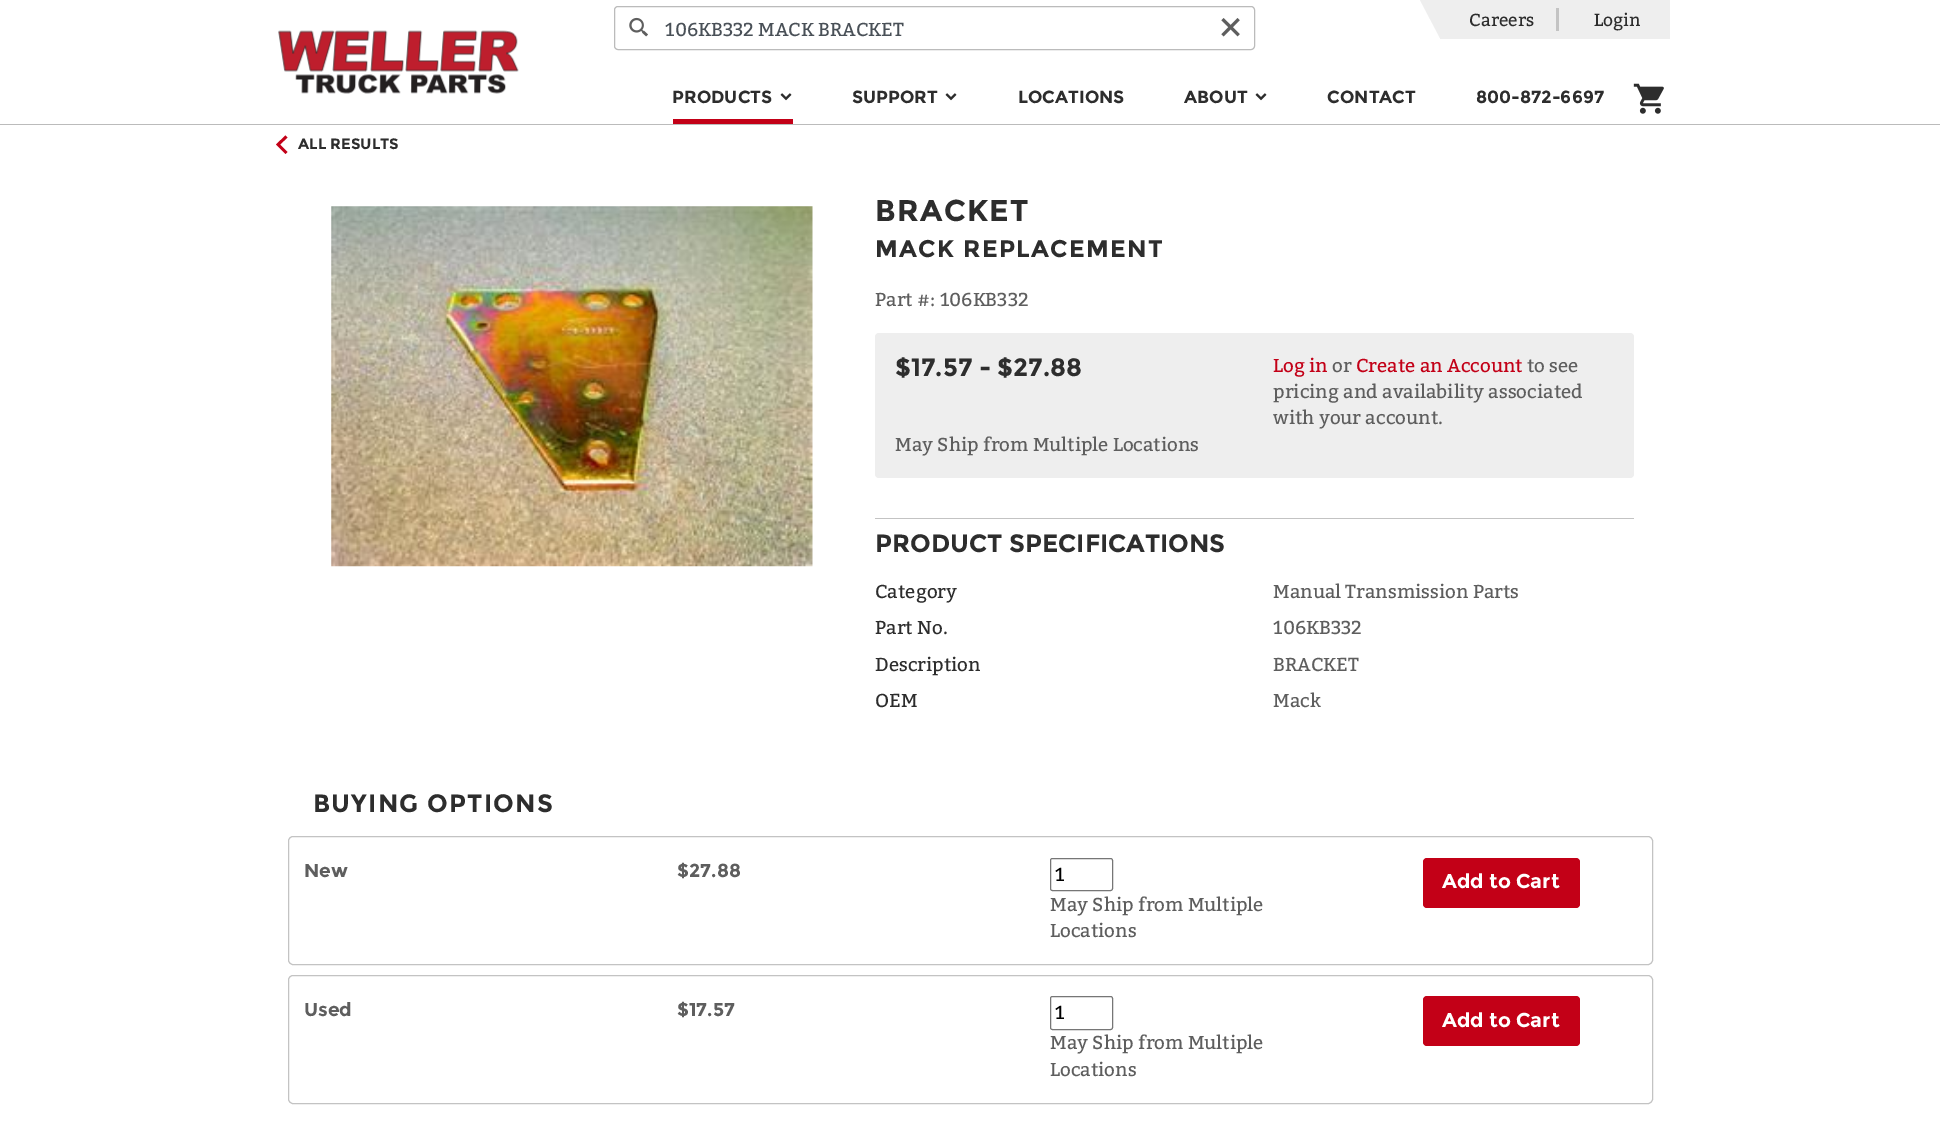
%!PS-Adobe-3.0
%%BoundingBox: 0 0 1940 1136
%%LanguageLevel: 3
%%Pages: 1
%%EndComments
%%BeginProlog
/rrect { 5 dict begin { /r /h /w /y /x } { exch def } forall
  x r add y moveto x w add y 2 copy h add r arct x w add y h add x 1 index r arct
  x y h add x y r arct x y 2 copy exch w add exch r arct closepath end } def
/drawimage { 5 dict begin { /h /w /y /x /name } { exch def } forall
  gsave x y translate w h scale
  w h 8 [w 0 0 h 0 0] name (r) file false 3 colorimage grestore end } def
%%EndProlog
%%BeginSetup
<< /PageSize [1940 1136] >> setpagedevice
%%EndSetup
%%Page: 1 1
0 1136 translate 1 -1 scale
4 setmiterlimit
1 setgray
0 0 1940 1136 rectfill
0.733 setgray
0 124 1940 1 rectfill
0.933 setgray
1440 0 230 39 rectfill
newpath 1420 0 moveto 1650 0 lineto 1670 38 lineto 1440 38 lineto closepath fill
0.765 setgray
1556 8 3 23 rectfill
0.765 0 0.09 setrgbcolor
673 119 120 5 rectfill
(images/1.raw) 780 93 12 8 drawimage
(images/1.raw) 945 93 12 8 drawimage
(images/1.raw) 1255 93 12 8 drawimage
(images/2.raw) 278 30 241 64 drawimage
0.733 setgray
614.5 6.5 640 43 3.5 rrect stroke
(images/3.raw) 629 17 19 20 drawimage
(images/4.raw) 1221 18 19 19 drawimage
(images/5.raw) 1633 83 31 31 drawimage
0.765 0 0.09 setrgbcolor
newpath 285.5 154 moveto 287.5 152 lineto 280 144.5 lineto 287.5 137.5 lineto 285.5 135.5 lineto 276 144.5 lineto closepath fill
(images/6.raw) 331 206 482 361 drawimage
0.933 setgray
875 333 759 145 4 rrect fill
0.765 setgray
875 518 759 1 rectfill
288.5 836.5 1364 128 4.5 rrect stroke
0.463 setgray
1050.5 858.5 62 32 2 rrect stroke
0.765 0 0.09 setrgbcolor
1423 858 157 50 4 rrect fill
0.765 setgray
288.5 975.5 1364 128 4.5 rrect stroke
0.463 setgray
1050.5 996.5 62 33 2 rrect stroke
0.765 0 0.09 setrgbcolor
1423 996 157 50 4 rrect fill
/Bitter-Regular [17.5 0 0 -17.5 0 0] selectfont
0.176 setgray
1469 26 moveto (Careers) show
1594 26 moveto (Login) show
/Montserrat-Bold [17.5 0 0 -17.5 0 0] selectfont
672 103 moveto (PRODUCTS) show
852 103 moveto (SUPPORT) show
1018 103 moveto (LOCATIONS) show
1184 103 moveto (ABOUT) show
1327 103 moveto (CONTACT) show
1476 103 moveto (800-872-6697) show
/Bitter-Regular [18.75 0 0 -18.75 0 0] selectfont
0.286 0.314 0.341 setrgbcolor
665 36 moveto (106KB332 MACK BRACKET) show
/Montserrat-Bold [15 0 0 -15 0 0] selectfont
0.176 setgray
298 149 moveto (ALL RESULTS) show
/Montserrat-Bold [30 0 0 -30 0 0] selectfont
875 221 moveto 1.25 0 (BRACKET) ashow
/Montserrat-Bold [24 0 0 -24 0 0] selectfont
875 257 moveto 1.25 0 (MACK REPLACEMENT) ashow
/Bitter-Regular [18.75 0 0 -18.75 0 0] selectfont
0.369 setgray
875 306 moveto (Part #: 106KB332) show
/Montserrat-Bold [25 0 0 -25 0 0] selectfont
0.176 setgray
895 376 moveto ($17.57 - $27.88) show
/Bitter-Regular [18.75 0 0 -18.75 0 0] selectfont
0.765 0 0.09 setrgbcolor
1273 372 moveto (Log in) show
0.369 setgray
1332 372 moveto (or) show
0.765 0 0.09 setrgbcolor
1356 372 moveto (Create an Account) show
0.369 setgray
1527 372 moveto (to see) show
1273 398 moveto (pricing and availability associated) show
1273 424 moveto (with your account.) show
895 451 moveto (May Ship from Multiple Locations) show
/Montserrat-Bold [25 0 0 -25 0 0] selectfont
0.176 setgray
875 552 moveto (PRODUCT SPECIFICATIONS) show
/Bitter-Regular [18.75 0 0 -18.75 0 0] selectfont
875 598 moveto (Category) show
0.369 setgray
1273 598 moveto (Manual Transmission Parts) show
0.176 setgray
875 634 moveto (Part No.) show
0.369 setgray
1273 634 moveto (106KB332) show
0.176 setgray
875 671 moveto (Description) show
0.369 setgray
1273 671 moveto (BRACKET) show
0.176 setgray
875 707 moveto (OEM) show
0.369 setgray
1273 707 moveto (Mack) show
/Montserrat-Bold [25 0 0 -25 0 0] selectfont
0.176 setgray
313 812 moveto 1.25 0 (BUYING OPTIONS) ashow
/Montserrat-Bold [18.75 0 0 -18.75 0 0] selectfont
0.369 setgray
304 877 moveto (New) show
677 877 moveto ($27.88) show
/Bitter-Regular [18.75 0 0 -18.75 0 0] selectfont
0 setgray
1055 881 moveto (1) show
0.369 setgray
1050 911 moveto (May Ship from Multiple) show
1050 937 moveto (Locations) show
/Montserrat-Bold [20 0 0 -20 0 0] selectfont
1 setgray
1442 888 moveto (Add to Cart) show
/Montserrat-Bold [18.75 0 0 -18.75 0 0] selectfont
0.369 setgray
304 1016 moveto (Used) show
677 1016 moveto ($17.57) show
/Bitter-Regular [18.75 0 0 -18.75 0 0] selectfont
0 setgray
1055 1019 moveto (1) show
0.369 setgray
1050 1049 moveto (May Ship from Multiple) show
1050 1076 moveto (Locations) show
/Montserrat-Bold [20 0 0 -20 0 0] selectfont
1 setgray
1442 1027 moveto (Add to Cart) show
showpage
%%EOF
